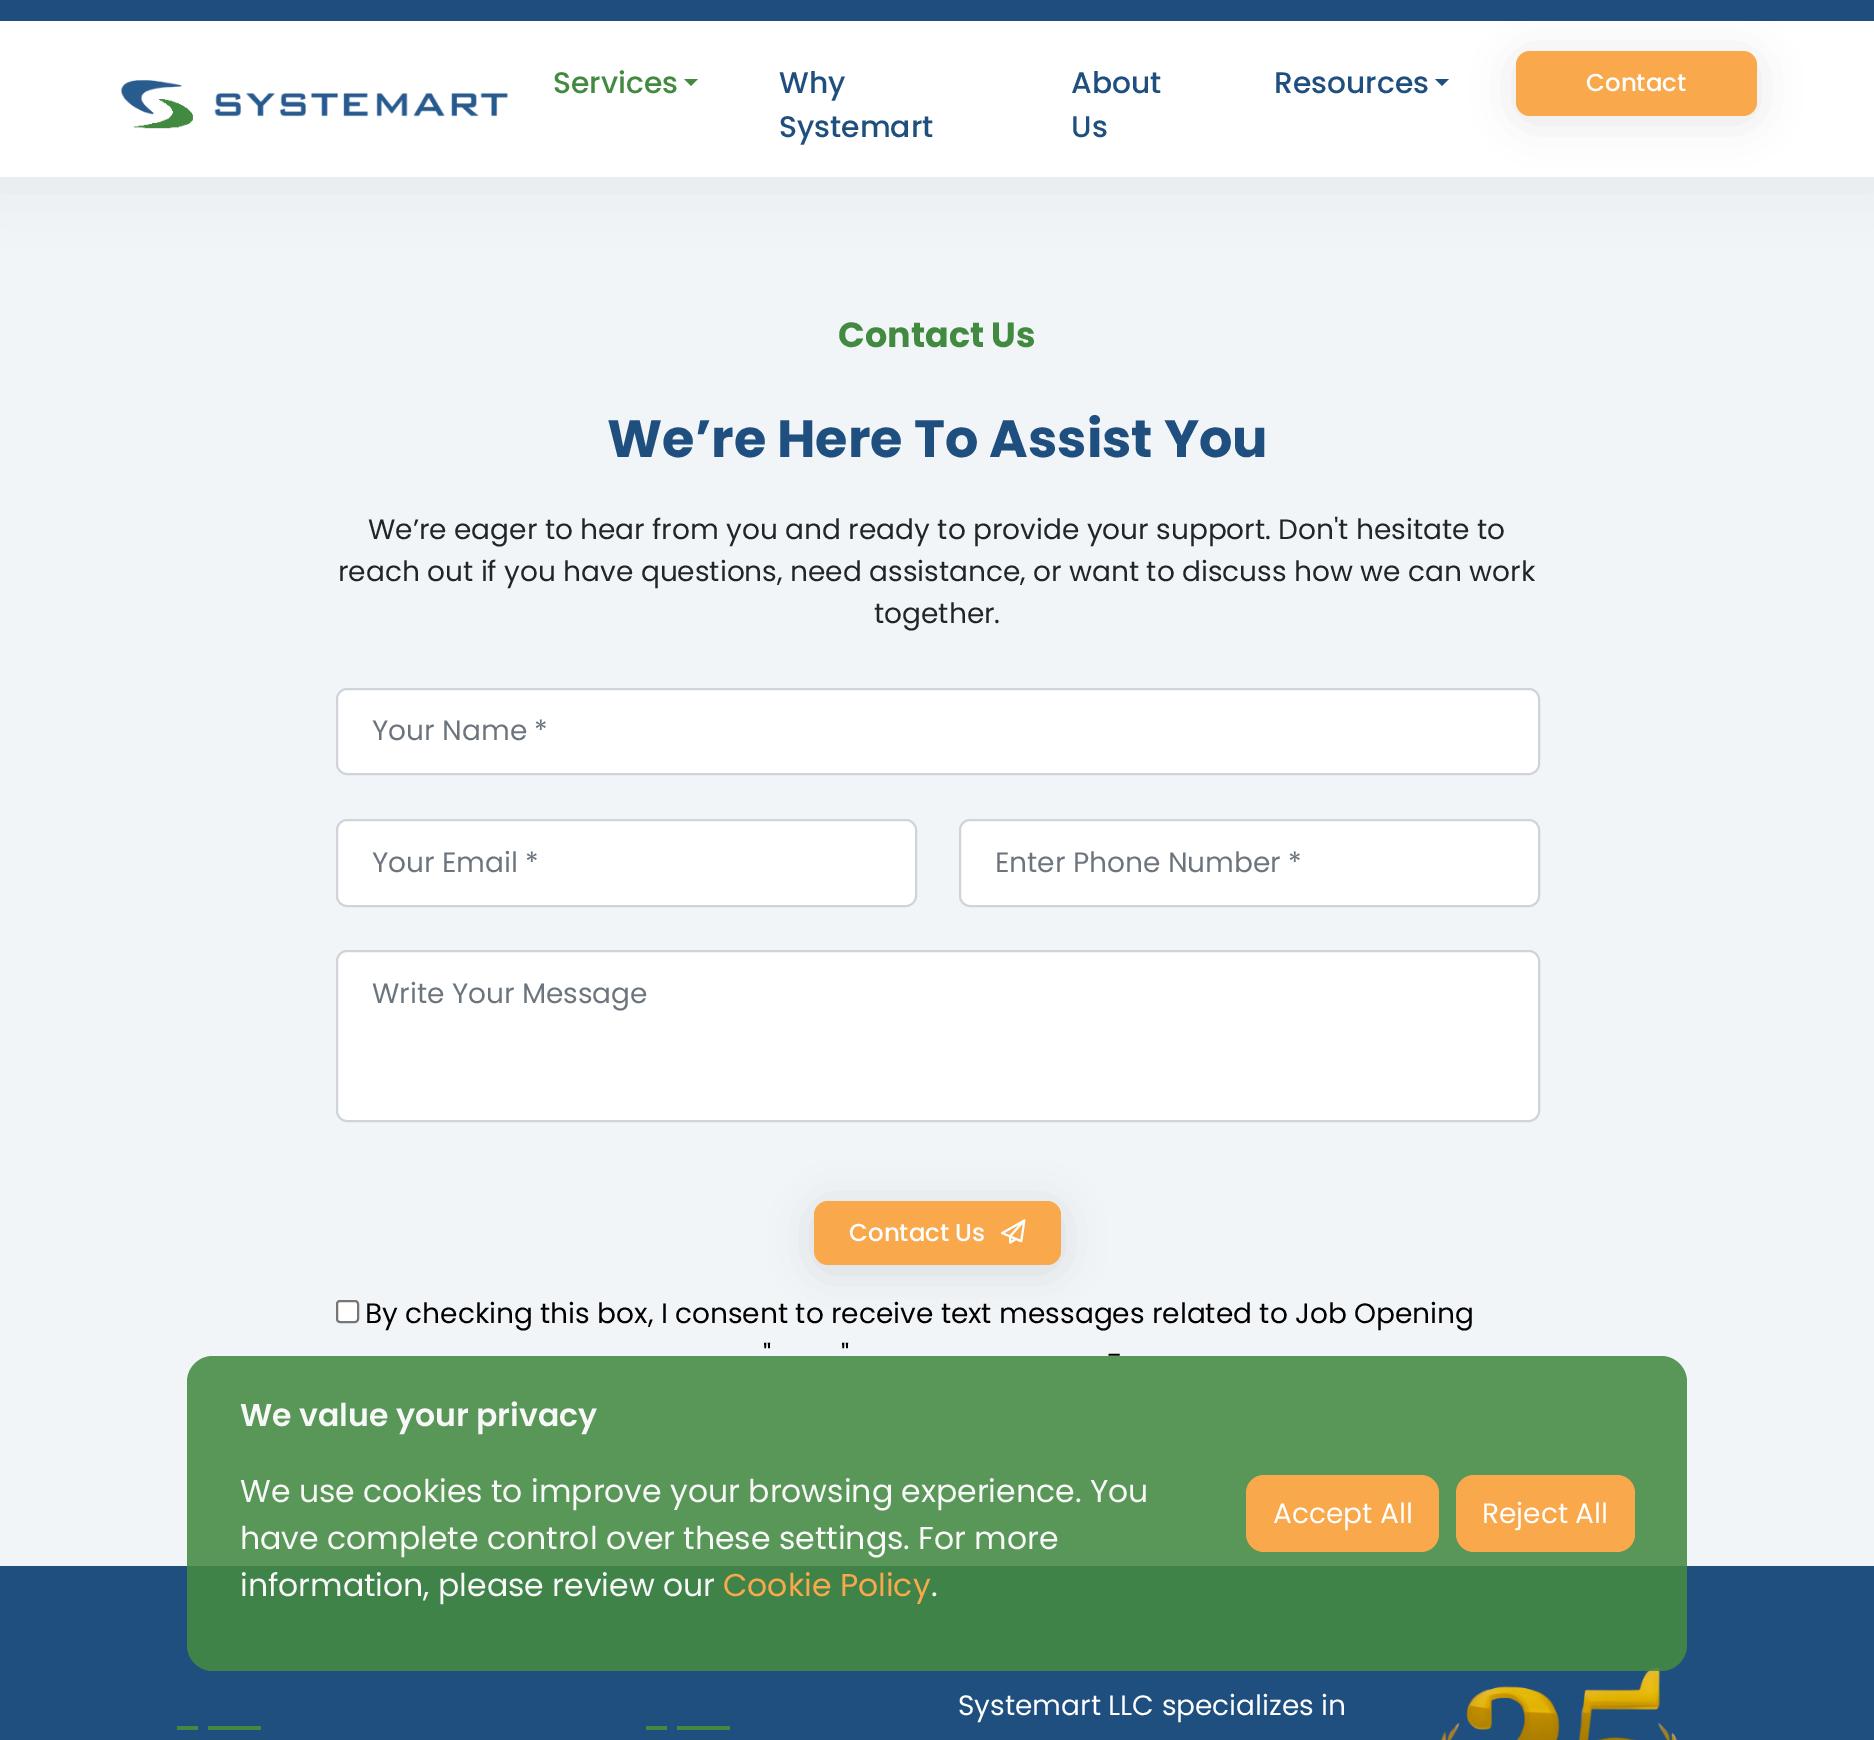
%!PS-Adobe-3.0
%%BoundingBox: 0 0 1874 1740
%%LanguageLevel: 3
%%Pages: 1
%%EndComments
%%BeginProlog
/setalpha { dup .setfillconstantalpha .setstrokeconstantalpha } def
/rrect { 5 dict begin { /r /h /w /y /x } { exch def } forall
  x r add y moveto x w add y 2 copy h add r arct x w add y h add x 1 index r arct
  x y h add x y r arct x y 2 copy exch w add exch r arct closepath end } def
/softshadow { 12 dict begin { /a /b /q /h /w /y /x } { exch def } forall gsave /was 0 def
  9 -2 -9 { dup b mul 4 div /e exch def 1 sub .425 mul 2.718 exch exp 1 add a .99 .min exch div /now exch def
    1 1 now sub 1 was sub div sub setalpha /was now def
    w h .min e 2 mul add 0 gt { x e sub y e sub w e 2 mul add h e 2 mul add
      q e add b .6 mul add w h .min 2 div e add .min 0 .max rrect fill } if } for grestore end } def
/drawimage { 5 dict begin { /h /w /y /x /name } { exch def } forall
  gsave x y translate w h scale
  w h 8 [w 0 0 h 0 0] name (r) file false 3 colorimage grestore end } def
%%EndProlog
%%BeginSetup
<< /PageSize [1874 1740] /PageUsesTransparency true >> setpagedevice
%%EndSetup
%%Page: 1 1
0 .pushpdf14devicefilter
0 1740 translate 1 -1 scale
4 setmiterlimit
0.949 0.961 0.973 setrgbcolor
0 0 1874 1740 rectfill
0.122 0.31 0.498 setrgbcolor
0 0 1874 21 rectfill
0 setgray
-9 12 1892 174 0 35 0.05 softshadow
1 setgray
0 21 1874 156 rectfill
(images/1.raw) 120 80 388 49 drawimage
0.263 0.541 0.255 setrgbcolor
newpath 684 79 moveto 698 79 lineto 691 86 lineto closepath fill
0.122 0.31 0.498 setrgbcolor
newpath 1435 79 moveto 1449 79 lineto 1442 86 lineto closepath fill
0 setgray
1516 56 241 65 14 21 0.1 softshadow
0.976 0.659 0.298 setrgbcolor
1516 51 241 65 14 rrect fill
1 setgray
337 689 1202 85 10 rrect gsave fill grestore
0.808 0.831 0.855 setrgbcolor
2 setlinewidth
stroke
1 setgray
337 820 579 86 10 rrect gsave fill grestore
0.808 0.831 0.855 setrgbcolor
stroke
1 setgray
960 820 579 86 10 rrect gsave fill grestore
0.808 0.831 0.855 setrgbcolor
stroke
1 setgray
337 951 1202 170 10 rrect gsave fill grestore
0.808 0.831 0.855 setrgbcolor
stroke
0 setgray
814 1206 247 65 14 21 0.1 softshadow
0.976 0.659 0.298 setrgbcolor
814 1201 247 64 14 rrect fill
(images/2.raw) 1001 1219 25 25 drawimage
1 setgray
337 1301 21 21 3 rrect gsave fill grestore
0.463 setgray
stroke
0.122 0.31 0.498 setrgbcolor
0 1566 1874 174 rectfill
(images/3.raw) 1441 1667 236 73 drawimage
0.88 setalpha
0.263 0.541 0.255 setrgbcolor
187 1356 1500 315 26 rrect fill
1 setalpha
0.976 0.659 0.298 setrgbcolor
1246 1475 193 77 18 rrect fill
1456 1475 179 77 18 rrect fill
0.263 0.541 0.255 setrgbcolor
177 1726 21 4 rectfill
208 1726 53 4 rectfill
646 1726 21 4 rectfill
677 1726 53 4 rectfill
/Poppins-Medium [29.75 0 0 -29.75 0 0] selectfont
553 93 moveto (Services) show
0.122 0.31 0.498 setrgbcolor
779 93 moveto (Why) show
779 137 moveto (Systemart) show
1071 93 moveto (About) show
1071 137 moveto (Us) show
1274 93 moveto (Resources) show
/Poppins-Medium [24.5 0 0 -24.5 0 0] selectfont
1 setgray
1586 91 moveto (Contact) show
/Poppins-Bold [35 0 0 -35 0 0] selectfont
0.263 0.541 0.255 setrgbcolor
838 347 moveto (Contact Us) show
/Poppins-Bold [52.5 0 0 -52.5 0 0] selectfont
0.122 0.31 0.498 setrgbcolor
607 457 moveto (We’re Here To Assist You) show
/Poppins-Regular [28 0 0 -28 0 0] selectfont
0.129 0.145 0.161 setrgbcolor
368 539 moveto (We’re eager to hear from you and ready to provide your support. Don't hesitate to) show
338 581 moveto (reach out if you have questions, need assistance, or want to discuss how we can work) show
874 623 moveto (together.) show
0.424 0.459 0.49 setrgbcolor
372 740 moveto (Your Name *) show
372 872 moveto (Your Email *) show
995 872 moveto (Enter Phone Number *) show
372 1003 moveto (Write Your Message) show
/Poppins-Medium [24.5 0 0 -24.5 0 0] selectfont
1 setgray
849 1241 moveto (Contact Us) show
/Poppins-Regular [28 0 0 -28 0 0] selectfont
0 setgray
365 1323 moveto (By checking this box, I consent to receive text messages related to Job Opening) show
763 1365 moveto (") show
841 1365 moveto (") show
1107 1365 moveto (-) show
/Poppins-SemiBold [31.5 0 0 -31.5 0 0] selectfont
0.973 setgray
240 1426 moveto (We value your privacy) show
/Poppins-Regular [31.5 0 0 -31.5 0 0] selectfont
240 1502 moveto (We use cookies to improve your browsing experience. You) show
240 1549 moveto (have complete control over these settings. For more) show
240 1596 moveto (information, please review our) show
0.976 0.659 0.298 setrgbcolor
723 1596 moveto (Cookie Policy) show
0.973 setgray
931 1596 moveto (.) show
/Poppins-Regular [28 0 0 -28 0 0] selectfont
1 setgray
1273 1523 moveto (Accept All) show
1482 1523 moveto (Reject All) show
958 1715 moveto (Systemart LLC specializes in) show
.poppdf14devicefilter showpage
%%EOF
